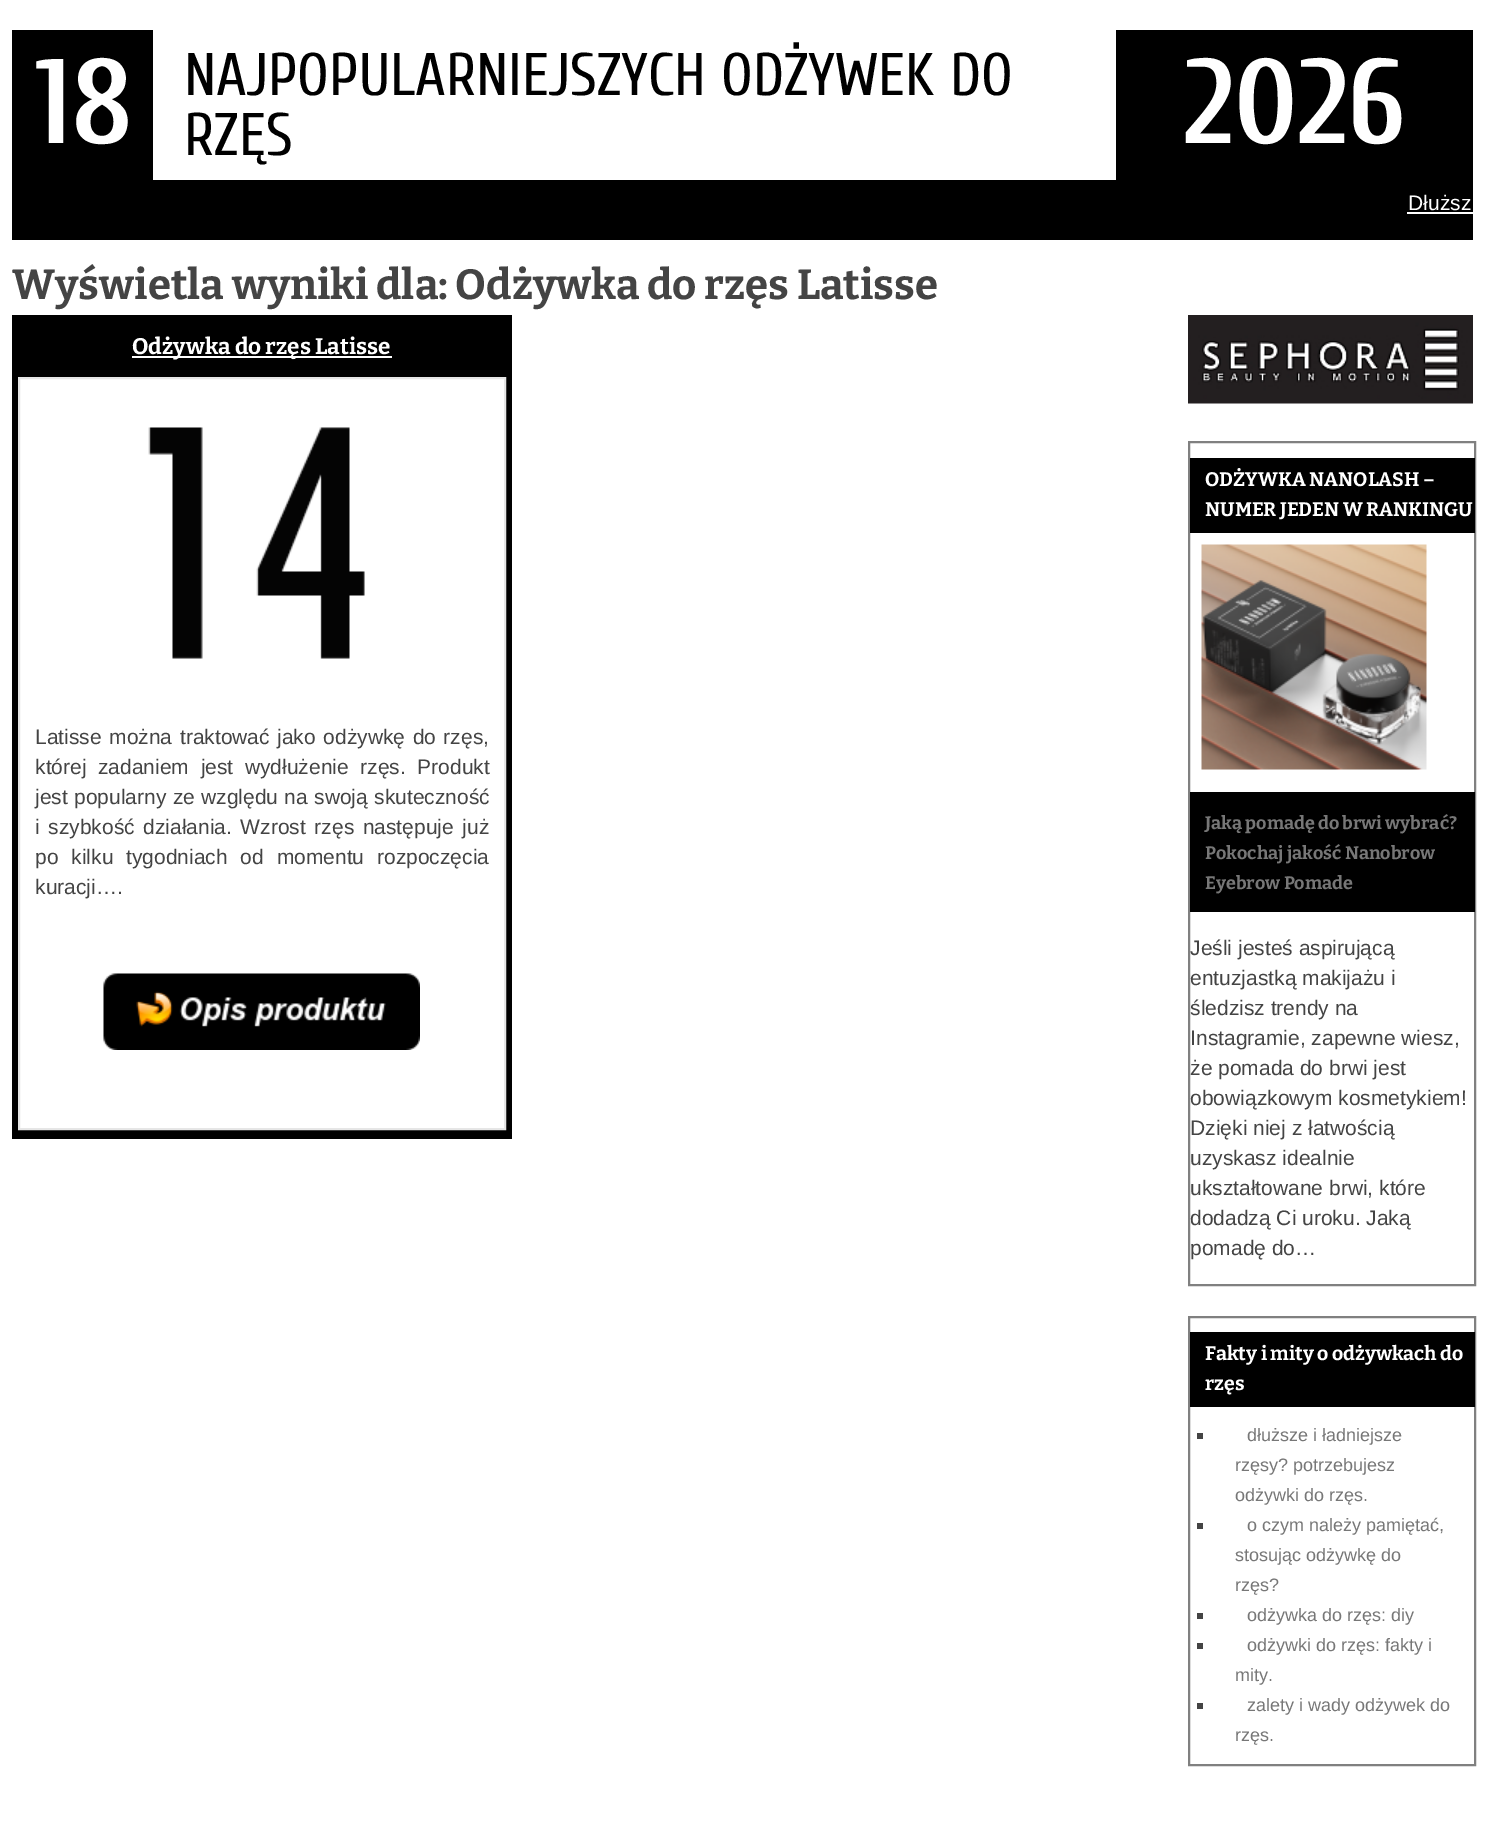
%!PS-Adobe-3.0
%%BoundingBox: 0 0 1485 1848
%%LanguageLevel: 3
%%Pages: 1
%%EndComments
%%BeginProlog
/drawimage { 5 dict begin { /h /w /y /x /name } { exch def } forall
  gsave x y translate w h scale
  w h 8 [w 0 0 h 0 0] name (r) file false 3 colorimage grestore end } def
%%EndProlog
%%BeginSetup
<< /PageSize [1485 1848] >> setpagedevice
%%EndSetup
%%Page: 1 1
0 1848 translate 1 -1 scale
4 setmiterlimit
1 setgray
0 0 1485 1848 rectfill
0 setgray
12 30 141 150 rectfill
1116 30 357 150 rectfill
12 180 1461 60 rectfill
1 setgray
1407 212 66 2 rectfill
0 setgray
12 315 500 824 rectfill
1 setgray
132 356 260 2 rectfill
newpath 19 378 moveto 505 378 lineto 505 1129 lineto 19 1129 lineto closepath gsave fill grestore
0.902 setgray
2 setlinewidth
stroke
(images/1.raw) 148 427 217 232 drawimage
(images/2.raw) 103 973 317 77 drawimage
(images/3.raw) 1188 315 285 89 drawimage
0.502 setgray
1189 442 286 843 rectstroke
0 setgray
1190 458 285 75 rectfill
(images/4.raw) 1201 544 226 226 drawimage
1190 792 285 120 rectfill
0.502 setgray
1189 1317 286 448 rectstroke
0 setgray
1190 1332 285 75 rectfill
0.267 setgray
1197 1433 6 6 rectfill
1197 1523 6 6 rectfill
1197 1613 6 6 rectfill
1197 1643 6 6 rectfill
1197 1703 6 6 rectfill
/Cuprum-Bold [120 0 0 -120 0 0] selectfont
1 setgray
35 143 moveto (18) show
/Cuprum-Regular [60 0 0 -60 0 0] selectfont
0 setgray
184 95 moveto (NAJPOPULARNIEJSZYCH ODŻYWEK DO) show
184 155 moveto (RZĘS) show
/Cuprum-Bold [120 0 0 -120 0 0] selectfont
1 setgray
1184 143 moveto (2026) show
/LiberationSans-Regular [21 0 0 -21 0 0] selectfont
1408 210 moveto (Dłuższ) show
/Bitter-Bold [42 0 0 -42 0 0] selectfont
0.267 setgray
12 299 moveto (Wyświetla wyniki dla: Odżywka do rzęs Latisse) show
/Bitter-Bold [22.5 0 0 -22.5 0 0] selectfont
1 setgray
132 354 moveto (Odżywka do rzęs Latisse) show
/LiberationSans-Regular [21 0 0 -21 0 0] selectfont
0.267 setgray
35 744 moveto 1.75 0 32 (Latisse można traktować jako odżywkę do rzęs,) widthshow
35 774 moveto 5.75 0 32 (której zadaniem jest wydłużenie rzęs. Produkt) widthshow
35 804 moveto 0.5 0 32 (jest popularny ze względu na swoją skuteczność) widthshow
35 834 moveto 2.75 0 32 (i szybkość działania. Wzrost rzęs następuje już) widthshow
35 864 moveto 7 0 32 (po kilku tygodniach od momentu rozpoczęcia) widthshow
35 894 moveto (kuracji….) show
/Bitter-Bold [19.5 0 0 -19.5 0 0] selectfont
1 setgray
1205 486 moveto (ODŻYWKA NANOLASH –) show
1205 516 moveto (NUMER JEDEN W RANKINGU) show
/Bitter-Bold [18 0 0 -18 0 0] selectfont
0.467 setgray
1205 829 moveto (Jaką pomadę do brwi wybrać?) show
1205 859 moveto (Pokochaj jakość Nanobrow) show
1205 889 moveto (Eyebrow Pomade) show
/LiberationSans-Regular [21 0 0 -21 0 0] selectfont
0.267 setgray
1190 955 moveto (Jeśli jesteś aspirującą) show
1190 985 moveto (entuzjastką makijażu i) show
1190 1015 moveto (śledzisz trendy na) show
1190 1045 moveto (Instagramie, zapewne wiesz,) show
1190 1075 moveto (że pomada do brwi jest) show
1190 1105 moveto (obowiązkowym kosmetykiem!) show
1190 1135 moveto (Dzięki niej z łatwością) show
1190 1165 moveto (uzyskasz idealnie) show
1190 1195 moveto (ukształtowane brwi, które) show
1190 1225 moveto (dodadzą Ci uroku. Jaką) show
1190 1255 moveto (pomadę do…) show
/Bitter-Bold [19.5 0 0 -19.5 0 0] selectfont
1 setgray
1205 1360 moveto (Fakty i mity o odżywkach do) show
1205 1390 moveto (rzęs) show
/LiberationSans-Regular [18 0 0 -18 0 0] selectfont
0.467 setgray
1247 1441 moveto (dłuższe i ładniejsze) show
1235 1471 moveto (rzęsy? potrzebujesz) show
1235 1501 moveto (odżywki do rzęs.) show
1247 1531 moveto (o czym należy pamiętać,) show
1235 1561 moveto (stosując odżywkę do) show
1235 1591 moveto (rzęs?) show
1247 1621 moveto (odżywka do rzęs: diy) show
1247 1651 moveto (odżywki do rzęs: fakty i) show
1235 1681 moveto (mity.) show
1247 1711 moveto (zalety i wady odżywek do) show
1235 1741 moveto (rzęs.) show
showpage
%%EOF
